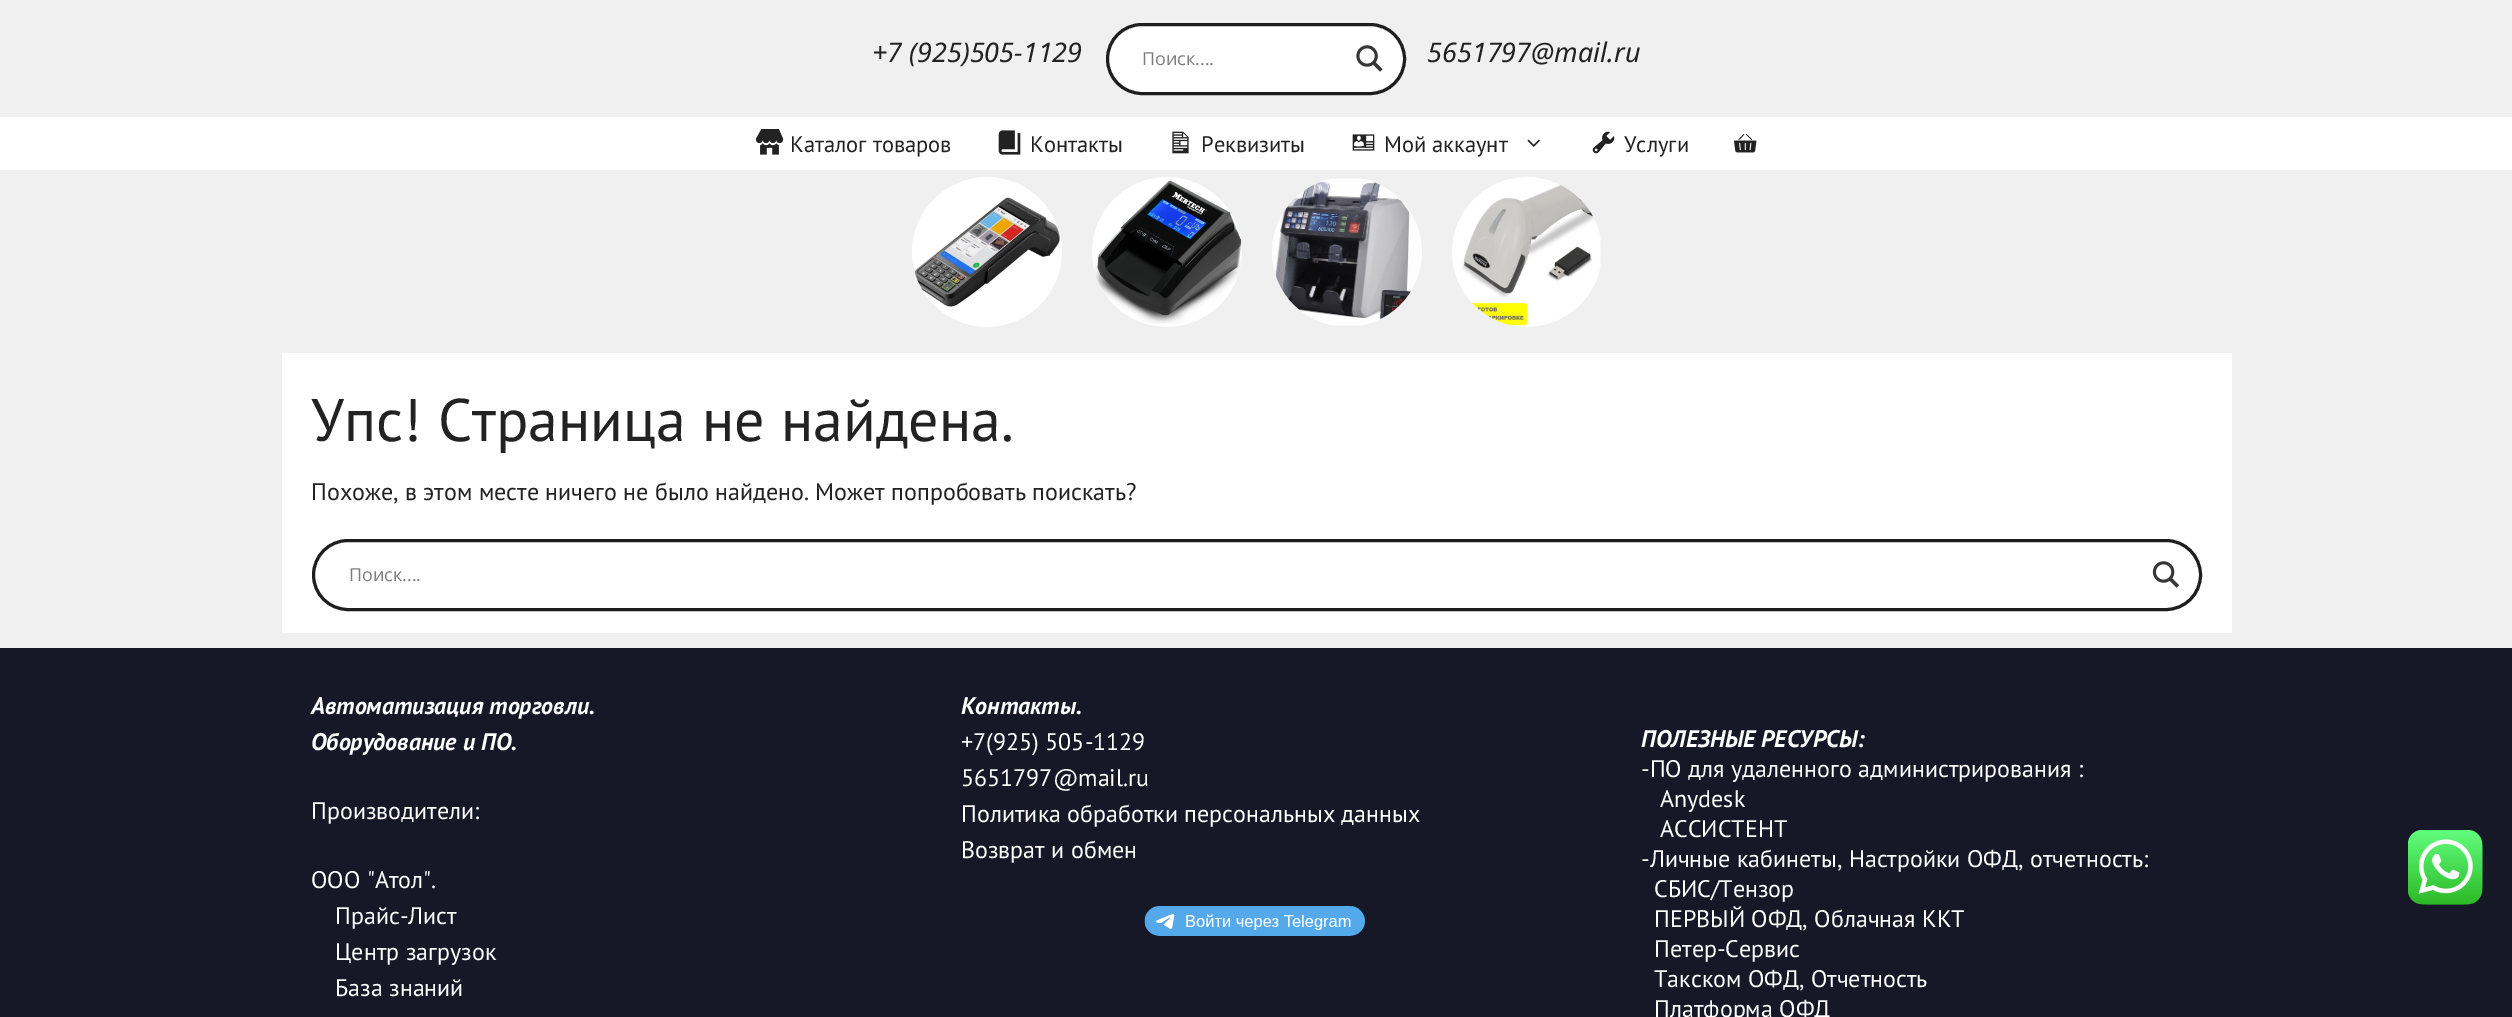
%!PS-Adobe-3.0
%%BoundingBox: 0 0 2512 1017
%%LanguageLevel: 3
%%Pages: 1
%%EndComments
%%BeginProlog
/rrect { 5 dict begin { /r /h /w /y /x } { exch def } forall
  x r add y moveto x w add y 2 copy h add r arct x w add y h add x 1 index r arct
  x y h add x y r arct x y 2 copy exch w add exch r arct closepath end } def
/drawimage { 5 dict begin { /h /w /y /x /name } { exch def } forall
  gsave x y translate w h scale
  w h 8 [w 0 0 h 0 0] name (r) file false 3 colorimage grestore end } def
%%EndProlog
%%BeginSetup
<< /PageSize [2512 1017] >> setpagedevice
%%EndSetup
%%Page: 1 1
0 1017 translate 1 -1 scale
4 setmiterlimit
0.941 setgray
0 0 2512 1017 rectfill
1 setgray
1107.5 24.5 297 69 34.5 rrect gsave fill grestore
0.118 setgray
3 setlinewidth
stroke
(images/1.raw) 1356 45 27 27 drawimage
1 setgray
0 117 2512 53 rectfill
(images/2.raw) 756 129 27 26 drawimage
(images/3.raw) 998 130 23 25 drawimage
(images/4.raw) 1172 131 17 23 drawimage
(images/5.raw) 1352 134 23 17 drawimage
(images/6.raw) 1527 139 13 8 drawimage
(images/7.raw) 1592 131 23 23 drawimage
(images/8.raw) 1734 134 23 19 drawimage
(images/9.raw) 912 177 150 150 drawimage
(images/10.raw) 1092 177 150 150 drawimage
(images/11.raw) 1272 178 150 148 drawimage
(images/12.raw) 1452 177 149 150 drawimage
282 353 1950 280 rectfill
0.118 setgray
313.5 540.5 1887 69 34.5 rrect stroke
(images/13.raw) 2152 561 28 27 drawimage
0.086 0.094 0.153 setrgbcolor
0 648 2512 369 rectfill
(images/14.raw) 1144 906 221 30 drawimage
(images/15.raw) 2408 830 75 75 drawimage
/NotoSans-Italic [27 0 0 -27 0 0] selectfont
0.133 setgray
872 62 moveto (+7 \(925\)505-1129) show
/OpenSans-Regular [18 0 0 -18 0 0] selectfont
0.49 setgray
1142 65 moveto (Поиск....) show
/NotoSans-Italic [27 0 0 -27 0 0] selectfont
0.133 setgray
1427 62 moveto (5651797@mail.ru) show
/PTSans-Regular [22.5 0 0 -22.5 0 0] selectfont
790 152 moveto (Каталог товаров) show
1030 152 moveto (Контакты) show
1201 152 moveto (Реквизиты) show
1384 152 moveto (Мой аккаунт) show
1624 152 moveto (Услуги) show
/PTSans-Regular [60 0 0 -60 0 0] selectfont
311 441 moveto (Упс! Страница не найдена.) show
/PTSans-Regular [24 0 0 -24 0 0] selectfont
311 500 moveto (Похоже, в этом месте ничего не было найдено. Может попробовать поискать?) show
/OpenSans-Regular [18 0 0 -18 0 0] selectfont
0.49 setgray
349 581 moveto (Поиск....) show
/PTSans-BoldItalic [24 0 0 -24 0 0] selectfont
1 setgray
311 714 moveto (Автоматизация торговли.) show
311 750 moveto (Оборудование и ПО.) show
/PTSans-Regular [24 0 0 -24 0 0] selectfont
311 819 moveto (Производители:) show
311 888 moveto (ООО "Атол".) show
335 924 moveto (Прайс-Лист) show
335 960 moveto (Центр загрузок) show
335 996 moveto (База знаний) show
/PTSans-BoldItalic [24 0 0 -24 0 0] selectfont
961 714 moveto (Контакты.) show
/PTSans-Regular [24 0 0 -24 0 0] selectfont
961 750 moveto (+7\(925\) 505-1129) show
961 786 moveto (5651797@mail.ru) show
961 822 moveto (Политика обработки персональных данных) show
961 858 moveto (Возврат и обмен) show
/PTSans-BoldItalic [24 0 0 -24 0 0] selectfont
1641 747 moveto (ПОЛЕЗНЫЕ РЕСУРСЫ:) show
/PTSans-Regular [24 0 0 -24 0 0] selectfont
1641 777 moveto (-ПО для удаленного администрирования :) show
1660 807 moveto (Anydesk) show
1660 837 moveto (АССИСТЕНТ) show
1641 867 moveto (-Личные кабинеты, Настройки ОФД, отчетность:) show
1654 897 moveto (СБИС/Тензор) show
1654 927 moveto (ПЕРВЫЙ ОФД, Облачная ККТ) show
1654 957 moveto (Петер-Сервис) show
1654 987 moveto (Такском ОФД, Отчетность) show
1654 1017 moveto (Платформа ОФД) show
showpage
%%EOF
